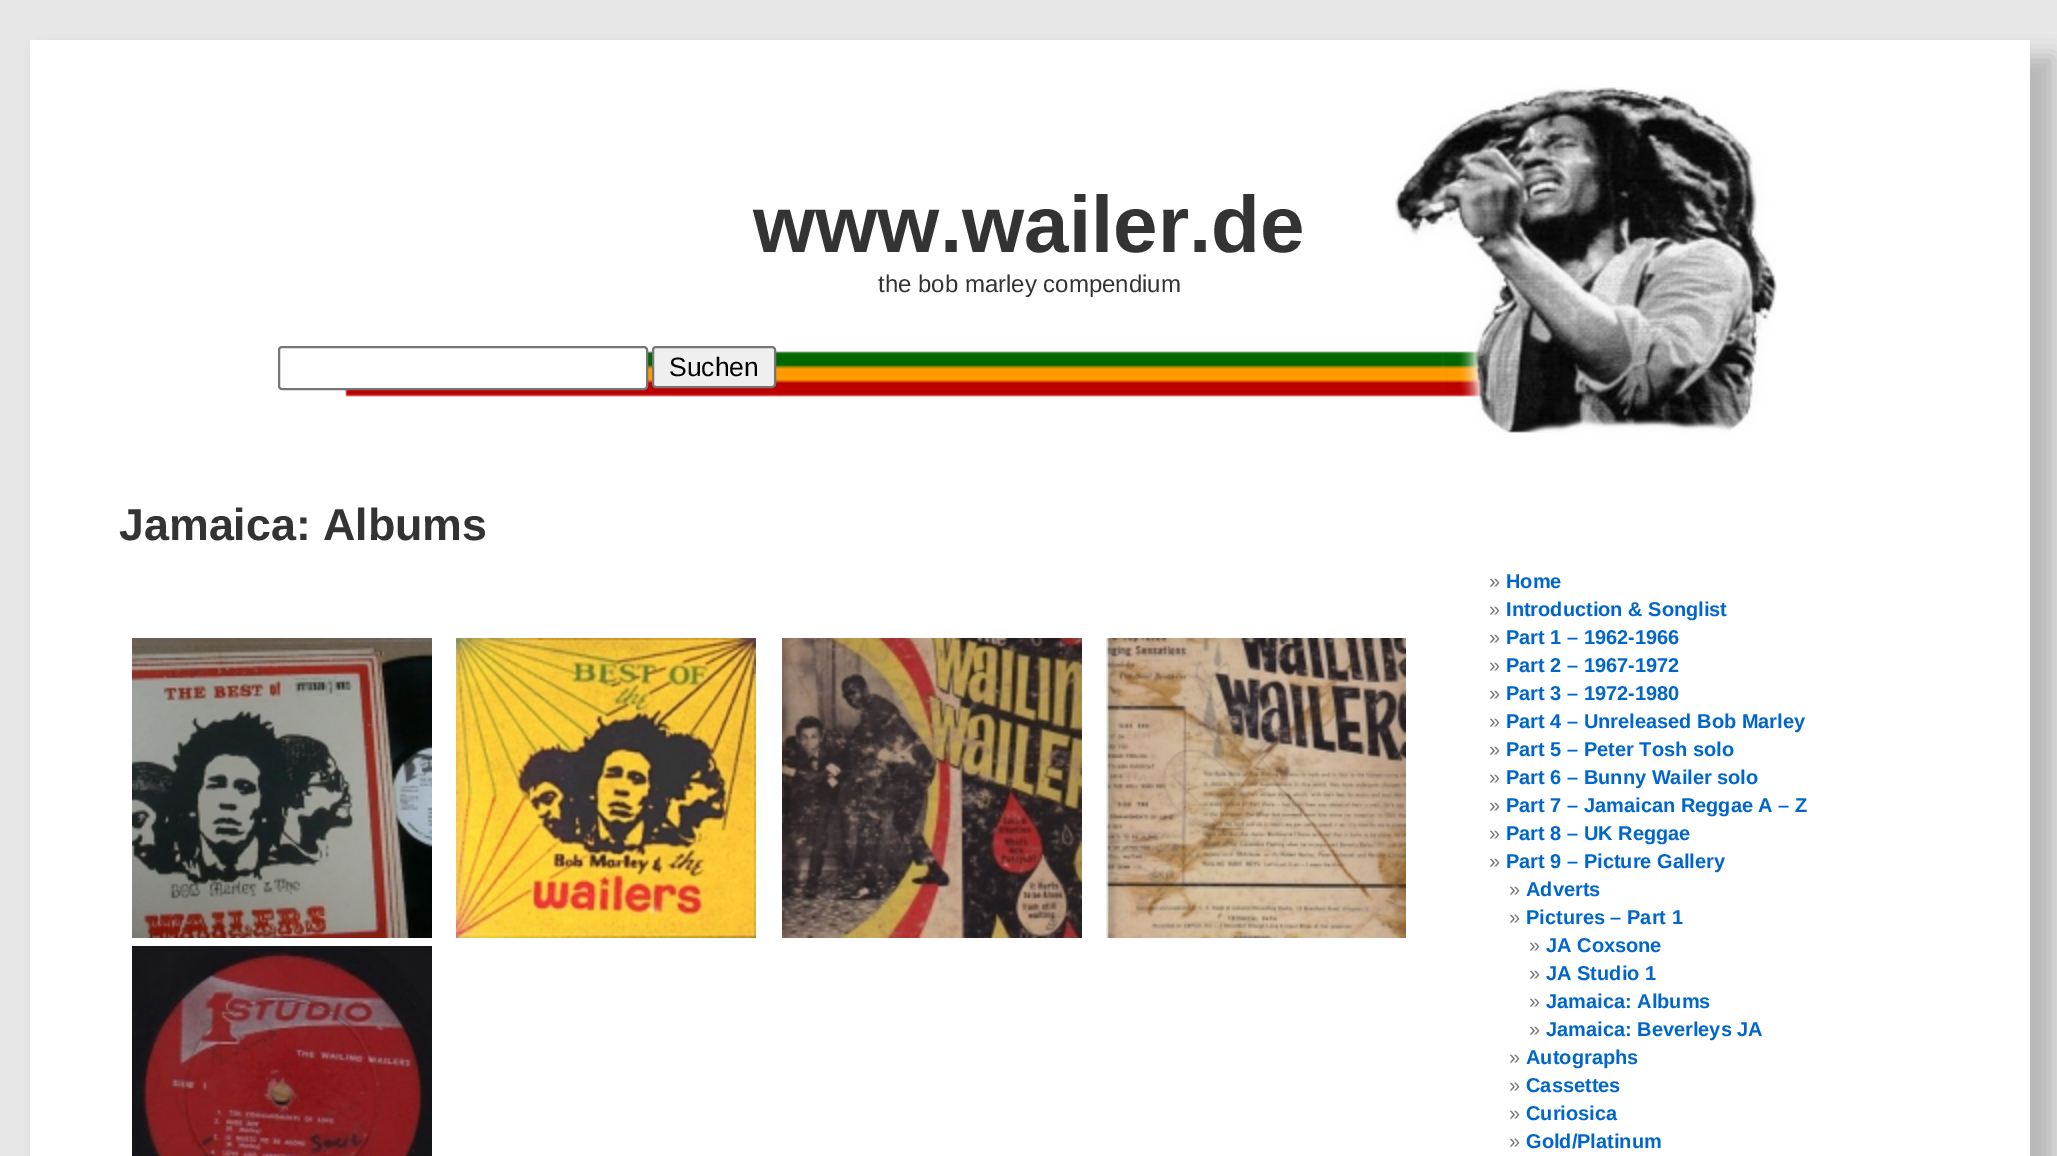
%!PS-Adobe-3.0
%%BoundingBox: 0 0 2057 1156
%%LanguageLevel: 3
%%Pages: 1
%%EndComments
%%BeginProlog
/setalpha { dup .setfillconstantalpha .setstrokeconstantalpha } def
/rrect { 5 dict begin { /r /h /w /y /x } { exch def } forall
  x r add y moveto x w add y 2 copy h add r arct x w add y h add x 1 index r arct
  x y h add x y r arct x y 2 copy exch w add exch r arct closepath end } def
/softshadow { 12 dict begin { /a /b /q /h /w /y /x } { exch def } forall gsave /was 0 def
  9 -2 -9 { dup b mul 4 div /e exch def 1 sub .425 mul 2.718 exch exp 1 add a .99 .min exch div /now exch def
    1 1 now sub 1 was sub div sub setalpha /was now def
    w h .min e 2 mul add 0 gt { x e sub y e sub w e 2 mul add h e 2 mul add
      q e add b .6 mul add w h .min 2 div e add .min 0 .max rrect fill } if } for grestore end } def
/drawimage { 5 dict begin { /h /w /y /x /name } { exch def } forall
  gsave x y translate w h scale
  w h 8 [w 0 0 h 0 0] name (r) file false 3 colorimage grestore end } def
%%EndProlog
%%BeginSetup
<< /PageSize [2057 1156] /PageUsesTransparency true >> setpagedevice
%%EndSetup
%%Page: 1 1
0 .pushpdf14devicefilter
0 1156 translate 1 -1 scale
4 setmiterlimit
0.906 setgray
0 0 2057 1156 rectfill
0 setgray
46 56 2008 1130 0 10 0.2 softshadow
1 setgray
30 40 2000 1116 rectfill
(images/1.raw) 345 87 1432 346 drawimage
279 347 368 42 3 rrect gsave fill grestore
0.463 setgray
2 setlinewidth
stroke
0.937 setgray
653 347 122 40 3 rrect gsave fill grestore
0.463 setgray
stroke
(images/2.raw) 132 638 300 300 drawimage
(images/3.raw) 456 638 300 300 drawimage
(images/4.raw) 782 638 300 300 drawimage
(images/5.raw) 1106 638 300 300 drawimage
(images/6.raw) 132 946 300 210 drawimage
/LiberationSans-Bold [80 0 0 -80 0 0] selectfont
0.2 setgray
753 252 moveto (www.wailer.de) show
/LiberationSans-Regular [24 0 0 -24 0 0] selectfont
878 292 moveto (the bob marley compendium) show
/LiberationSans-Regular [26.5 0 0 -26.5 0 0] selectfont
0 setgray
669 376 moveto (Suchen) show
/LiberationSans-Bold [44.75 0 0 -44.75 0 0] selectfont
0.2 setgray
119 540 moveto (Jamaica: Albums) show
/LiberationSans-Regular [20 0 0 -20 0 0] selectfont
0.467 setgray
1489 588 moveto (») show
/LiberationSans-Bold [20 0 0 -20 0 0] selectfont
0 0.4 0.8 setrgbcolor
1506 588 moveto (Home) show
/LiberationSans-Regular [20 0 0 -20 0 0] selectfont
0.467 setgray
1489 616 moveto (») show
/LiberationSans-Bold [20 0 0 -20 0 0] selectfont
0 0.4 0.8 setrgbcolor
1506 616 moveto (Introduction & Songlist) show
/LiberationSans-Regular [20 0 0 -20 0 0] selectfont
0.467 setgray
1489 644 moveto (») show
/LiberationSans-Bold [20 0 0 -20 0 0] selectfont
0 0.4 0.8 setrgbcolor
1506 644 moveto (Part 1 – 1962-1966) show
/LiberationSans-Regular [20 0 0 -20 0 0] selectfont
0.467 setgray
1489 672 moveto (») show
/LiberationSans-Bold [20 0 0 -20 0 0] selectfont
0 0.4 0.8 setrgbcolor
1506 672 moveto (Part 2 – 1967-1972) show
/LiberationSans-Regular [20 0 0 -20 0 0] selectfont
0.467 setgray
1489 700 moveto (») show
/LiberationSans-Bold [20 0 0 -20 0 0] selectfont
0 0.4 0.8 setrgbcolor
1506 700 moveto (Part 3 – 1972-1980) show
/LiberationSans-Regular [20 0 0 -20 0 0] selectfont
0.467 setgray
1489 728 moveto (») show
/LiberationSans-Bold [20 0 0 -20 0 0] selectfont
0 0.4 0.8 setrgbcolor
1506 728 moveto (Part 4 – Unreleased Bob Marley) show
/LiberationSans-Regular [20 0 0 -20 0 0] selectfont
0.467 setgray
1489 756 moveto (») show
/LiberationSans-Bold [20 0 0 -20 0 0] selectfont
0 0.4 0.8 setrgbcolor
1506 756 moveto (Part 5 – Peter Tosh solo) show
/LiberationSans-Regular [20 0 0 -20 0 0] selectfont
0.467 setgray
1489 784 moveto (») show
/LiberationSans-Bold [20 0 0 -20 0 0] selectfont
0 0.4 0.8 setrgbcolor
1506 784 moveto (Part 6 – Bunny Wailer solo) show
/LiberationSans-Regular [20 0 0 -20 0 0] selectfont
0.467 setgray
1489 812 moveto (») show
/LiberationSans-Bold [20 0 0 -20 0 0] selectfont
0 0.4 0.8 setrgbcolor
1506 812 moveto (Part 7 – Jamaican Reggae A – Z) show
/LiberationSans-Regular [20 0 0 -20 0 0] selectfont
0.467 setgray
1489 840 moveto (») show
/LiberationSans-Bold [20 0 0 -20 0 0] selectfont
0 0.4 0.8 setrgbcolor
1506 840 moveto (Part 8 – UK Reggae) show
/LiberationSans-Regular [20 0 0 -20 0 0] selectfont
0.467 setgray
1489 868 moveto (») show
/LiberationSans-Bold [20 0 0 -20 0 0] selectfont
0 0.4 0.8 setrgbcolor
1506 868 moveto (Part 9 – Picture Gallery) show
/LiberationSans-Regular [20 0 0 -20 0 0] selectfont
0.467 setgray
1509 896 moveto (») show
/LiberationSans-Bold [20 0 0 -20 0 0] selectfont
0 0.4 0.8 setrgbcolor
1526 896 moveto (Adverts) show
/LiberationSans-Regular [20 0 0 -20 0 0] selectfont
0.467 setgray
1509 924 moveto (») show
/LiberationSans-Bold [20 0 0 -20 0 0] selectfont
0 0.4 0.8 setrgbcolor
1526 924 moveto (Pictures – Part 1) show
/LiberationSans-Regular [20 0 0 -20 0 0] selectfont
0.467 setgray
1529 952 moveto (») show
/LiberationSans-Bold [20 0 0 -20 0 0] selectfont
0 0.4 0.8 setrgbcolor
1546 952 moveto (JA Coxsone) show
/LiberationSans-Regular [20 0 0 -20 0 0] selectfont
0.467 setgray
1529 980 moveto (») show
/LiberationSans-Bold [20 0 0 -20 0 0] selectfont
0 0.4 0.8 setrgbcolor
1546 980 moveto (JA Studio 1) show
/LiberationSans-Regular [20 0 0 -20 0 0] selectfont
0.467 setgray
1529 1008 moveto (») show
/LiberationSans-Bold [20 0 0 -20 0 0] selectfont
0 0.4 0.8 setrgbcolor
1546 1008 moveto (Jamaica: Albums) show
/LiberationSans-Regular [20 0 0 -20 0 0] selectfont
0.467 setgray
1529 1036 moveto (») show
/LiberationSans-Bold [20 0 0 -20 0 0] selectfont
0 0.4 0.8 setrgbcolor
1546 1036 moveto (Jamaica: Beverleys JA) show
/LiberationSans-Regular [20 0 0 -20 0 0] selectfont
0.467 setgray
1509 1064 moveto (») show
/LiberationSans-Bold [20 0 0 -20 0 0] selectfont
0 0.4 0.8 setrgbcolor
1526 1064 moveto (Autographs) show
/LiberationSans-Regular [20 0 0 -20 0 0] selectfont
0.467 setgray
1509 1092 moveto (») show
/LiberationSans-Bold [20 0 0 -20 0 0] selectfont
0 0.4 0.8 setrgbcolor
1526 1092 moveto (Cassettes) show
/LiberationSans-Regular [20 0 0 -20 0 0] selectfont
0.467 setgray
1509 1120 moveto (») show
/LiberationSans-Bold [20 0 0 -20 0 0] selectfont
0 0.4 0.8 setrgbcolor
1526 1120 moveto (Curiosica) show
/LiberationSans-Regular [20 0 0 -20 0 0] selectfont
0.467 setgray
1509 1148 moveto (») show
/LiberationSans-Bold [20 0 0 -20 0 0] selectfont
0 0.4 0.8 setrgbcolor
1526 1148 moveto (Gold/Platinum) show
.poppdf14devicefilter showpage
%%EOF
